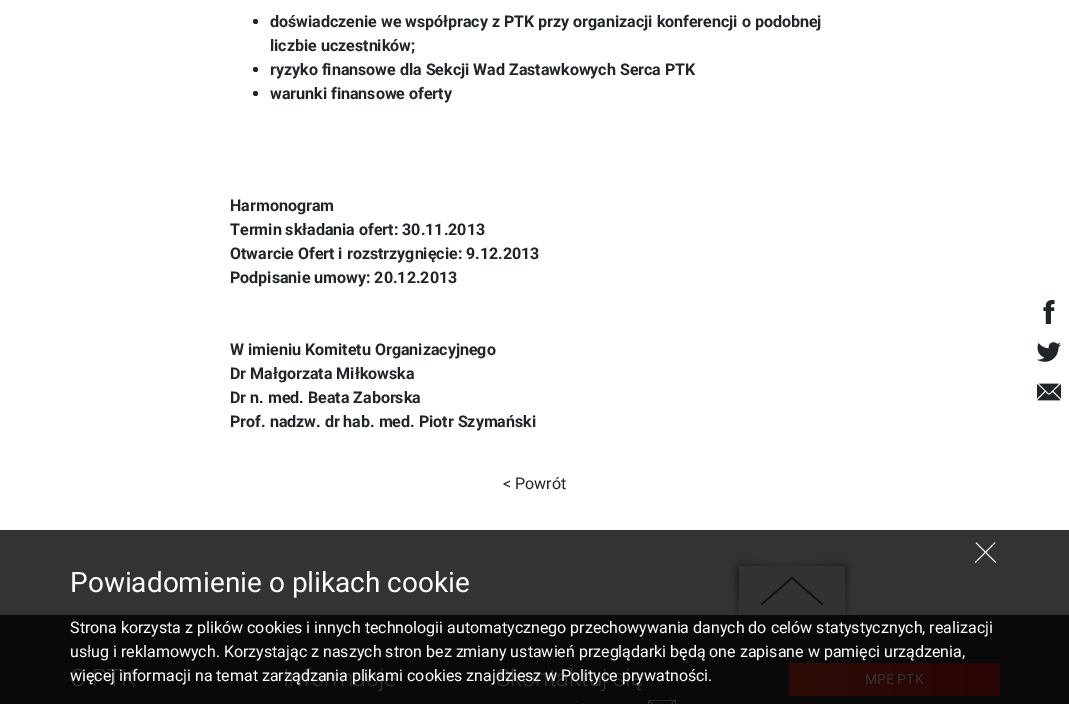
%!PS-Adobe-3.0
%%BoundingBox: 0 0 1069 704
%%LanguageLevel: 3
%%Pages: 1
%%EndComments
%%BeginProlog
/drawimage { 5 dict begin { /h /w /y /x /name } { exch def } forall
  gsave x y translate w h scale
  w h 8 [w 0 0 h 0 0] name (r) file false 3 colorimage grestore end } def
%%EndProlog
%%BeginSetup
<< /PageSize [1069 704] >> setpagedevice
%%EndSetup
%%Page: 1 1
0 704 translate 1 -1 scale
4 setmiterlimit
1 setgray
0 0 1069 704 rectfill
0.2 setgray
0 530 1069 85 rectfill
0.129 0.145 0.161 setrgbcolor
newpath 255.5 21.5 2.5 0 360 arc closepath fill
newpath 255.5 69.5 2.5 0 360 arc closepath fill
newpath 255.5 93.5 2.5 0 360 arc closepath fill
(images/1.raw) 1043 300 12 24 drawimage
(images/2.raw) 1037 342 24 20 drawimage
(images/3.raw) 1037 383 24 18 drawimage
1 setgray
newpath 976.5 542.5 moveto 996 562 lineto 995.5 563 lineto 975.5 543 lineto closepath fill
newpath 975 562 moveto 994.5 542.5 lineto 995.5 543 lineto 975.5 563 lineto closepath fill
0.035 setgray
0 615 1069 89 rectfill
(images/4.raw) 730 557 124 58 drawimage
(images/5.raw) 582 700 94 4 drawimage
gsave newpath 789 663 moveto 1000 663 lineto 1000 696 lineto 789 696 lineto closepath clip newpath
<< /ShadingType 2 /ColorSpace /DeviceRGB /Coords [789 680 1000 680] /Extend [true true] /Function << /FunctionType 2 /Domain [0 1] /C0 [0.18 0.047 0.024] /C1 [0.157 0.016 0.016] /N 1 >> >> shfill grestore
/Roboto-Bold [16 0 0 -16 0 0] selectfont
0.129 0.145 0.161 setrgbcolor
270 27 moveto (doświadczenie we współpracy z PTK przy organizacji konferencji o podobnej) show
270 51 moveto (liczbie uczestników;) show
270 75 moveto (ryzyko finansowe dla Sekcji Wad Zastawkowych Serca PTK) show
270 99 moveto (warunki finansowe oferty) show
230 211 moveto (Harmonogram) show
230 235 moveto (Termin składania ofert: 30.11.2013) show
230 259 moveto (Otwarcie Ofert i rozstrzygnięcie: 9.12.2013) show
230 283 moveto (Podpisanie umowy: 20.12.2013) show
230 355 moveto (W imieniu Komitetu Organizacyjnego) show
230 379 moveto (Dr Małgorzata Miłkowska) show
230 403 moveto (Dr n. med. Beata Zaborska) show
230 427 moveto (Prof. nadzw. dr hab. med. Piotr Szymański) show
/Roboto-Regular [16 0 0 -16 0 0] selectfont
503 489 moveto (< Powrót) show
/Roboto-Regular [28 0 0 -28 0 0] selectfont
1 setgray
70 592 moveto (Powiadomienie o plikach cookie) show
/Roboto-Regular [16 0 0 -16 0 0] selectfont
70 633 moveto (Strona korzysta z plików cookies i innych technologii automatycznego przechowywania danych do celów statystycznych, realizacji) show
70 657 moveto (usług i reklamowych. Korzystając z naszych stron bez zmiany ustawień przeglądarki będą one zapisane w pamięci urządzenia,) show
/Roboto-Light [24 0 0 -24 0 0] selectfont
0.2 setgray
70 686 moveto (O PTK) show
283 686 moveto (Informacje) show
496 686 moveto (Skontaktuj się) show
/Roboto-Regular [16 0 0 -16 0 0] selectfont
1 setgray
70 681 moveto (więcej informacji na temat zarządzania plikami cookies znajdziesz w Polityce prywatności.) show
/Roboto-Regular [14 0 0 -14 0 0] selectfont
0.2 setgray
865 684 moveto (MPE PTK) show
showpage
%%EOF
